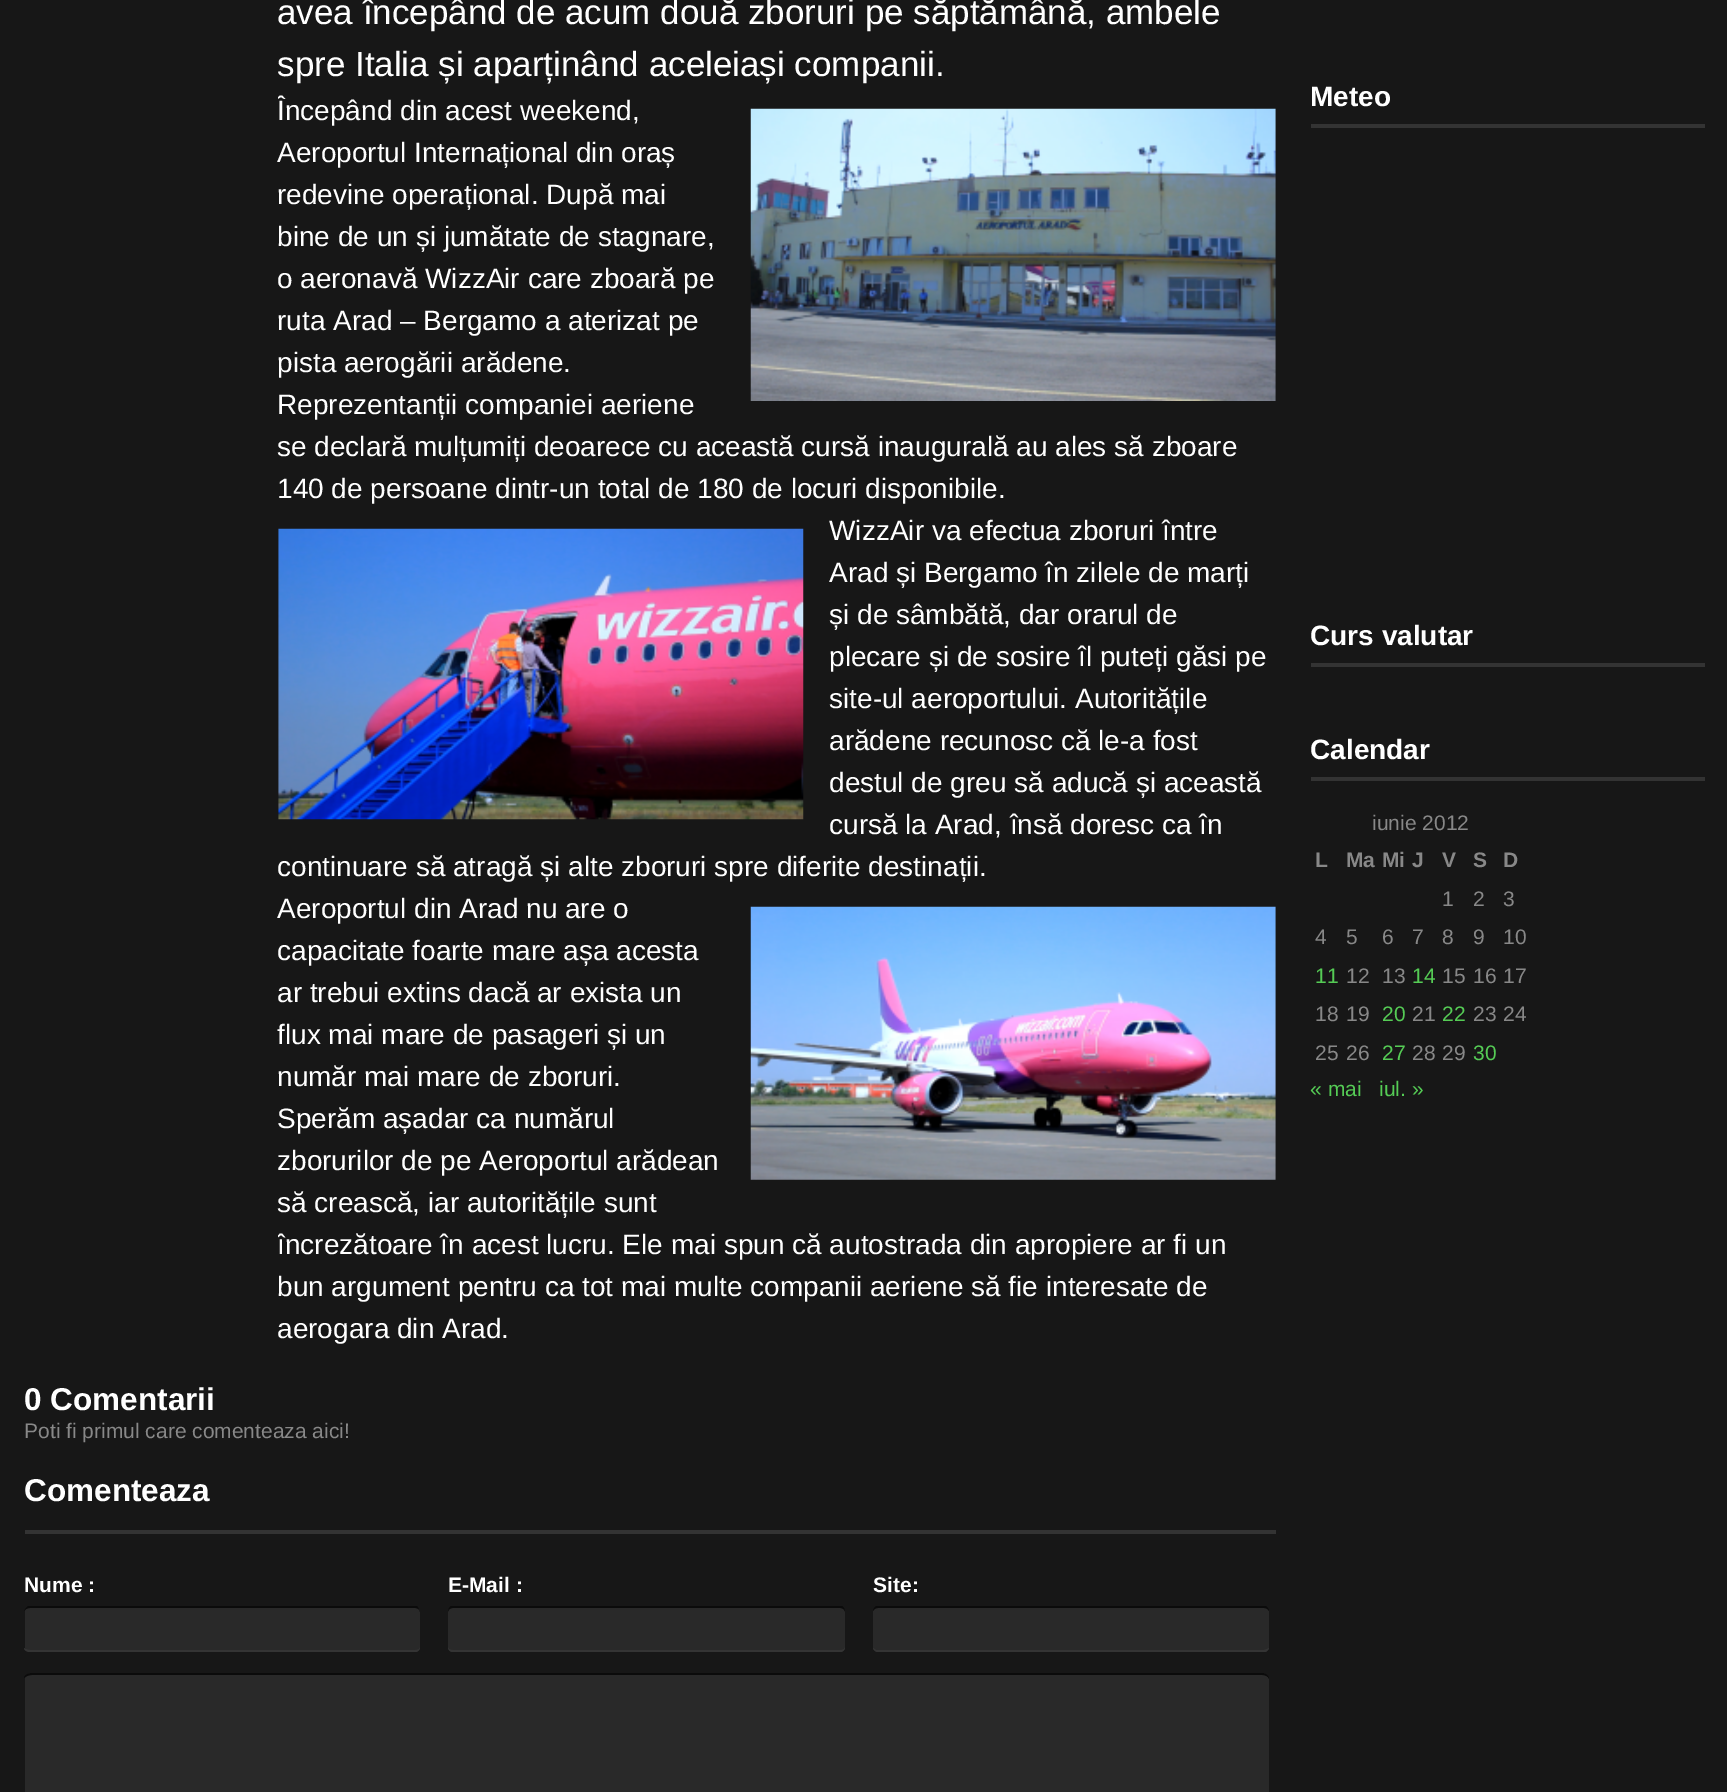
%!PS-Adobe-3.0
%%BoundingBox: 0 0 1727 1792
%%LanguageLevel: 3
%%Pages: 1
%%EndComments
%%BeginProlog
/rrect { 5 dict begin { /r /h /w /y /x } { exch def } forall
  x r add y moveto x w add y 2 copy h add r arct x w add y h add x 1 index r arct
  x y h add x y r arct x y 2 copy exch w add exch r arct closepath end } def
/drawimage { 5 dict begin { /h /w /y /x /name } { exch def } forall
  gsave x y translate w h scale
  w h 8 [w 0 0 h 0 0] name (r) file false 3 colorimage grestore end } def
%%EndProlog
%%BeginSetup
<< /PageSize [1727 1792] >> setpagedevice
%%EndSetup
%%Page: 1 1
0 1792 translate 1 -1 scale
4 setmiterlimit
0.09 setgray
0 0 1727 1792 rectfill
(images/1.raw) 750 108 526 293 drawimage
(images/2.raw) 278 528 526 292 drawimage
(images/3.raw) 750 906 526 274 drawimage
0.2 setgray
25 1530 1251 4 rectfill
0.161 setgray
25 1607 395 45 5 rrect fill
0.043 setgray
newpath 30 1608 moveto 28 1608 25 1609 24 1611 curveto 26 1608 lineto 28 1606 lineto 417 1606 lineto 419 1609 lineto 420 1612 lineto 420 1610 418 1608 415 1608 curveto closepath fill
0.204 setgray
newpath 415 1652 moveto 418 1652 420 1650 420 1647 curveto 420 1649 418 1650 415 1650 curveto 30 1650 lineto 28 1650 25 1649 24 1648 curveto 24 1651 28 1652 30 1652 curveto closepath fill
0.161 setgray
448 1607 397 45 5 rrect fill
0.043 setgray
newpath 453 1608 moveto 840 1608 lineto 843 1608 845 1610 845 1612 curveto 845 1610 844 1607 842 1606 curveto 451 1606 lineto 449 1607 448 1610 448 1612 curveto 448 1610 450 1608 453 1608 curveto closepath fill
0.204 setgray
newpath 840 1652 moveto 843 1652 845 1650 845 1647 curveto 845 1649 843 1650 840 1650 curveto 453 1650 lineto 450 1650 448 1649 448 1647 curveto 448 1650 450 1652 453 1652 curveto closepath fill
0.161 setgray
873 1607 396 45 5 rrect fill
0.043 setgray
newpath 878 1608 moveto 876 1608 874 1609 873 1611 curveto 873 1609 875 1607 876 1606 curveto 1266 1606 lineto 1267 1607 1269 1609 1269 1611 curveto 1268 1609 1266 1608 1264 1608 curveto closepath fill
0.204 setgray
newpath 878 1652 moveto 1264 1652 lineto 1266 1652 1268 1651 1269 1648 curveto 1267 1649 lineto 1264 1650 lineto 876 1650 lineto 873 1648 lineto 873 1650 876 1652 878 1652 curveto closepath fill
0.161 setgray
25 1673 1244 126 7 rrect fill
0.043 setgray
newpath 32 1673 moveto 29 1673 24 1675 24 1678 curveto 26 1676 29 1675 32 1675 curveto 1262 1675 lineto 1265 1675 1268 1676 1269 1679 curveto 1269 1675 1265 1673 1262 1673 curveto closepath fill
0.2 setgray
1311 124 394 4 rectfill
1311 663 394 4 rectfill
1311 777 394 4 rectfill
/LiberationSans-Regular [35 0 0 -35 0 0] selectfont
1 setgray
277 24 moveto (avea începând de acum două zboruri pe săptămână, ambele) show
277 76 moveto (spre Italia și aparținând aceleiași companii.) show
gsave
278 0 998 1379 rectclip
/LiberationSans-Regular [28 0 0 -28 0 0] selectfont
277 120 moveto (Începând din acest weekend,) show
grestore
/LiberationSans-Regular [28 0 0 -28 0 0] selectfont
277 162 moveto (Aeroportul Internațional din oraș) show
277 204 moveto (redevine operațional. După mai) show
277 246 moveto (bine de un și jumătate de stagnare,) show
277 288 moveto (o aeronavă WizzAir care zboară pe) show
277 330 moveto (ruta Arad – Bergamo a aterizat pe) show
277 372 moveto (pista aerogării arădene.) show
277 414 moveto (Reprezentanții companiei aeriene) show
277 456 moveto (se declară mulțumiți deoarece cu această cursă inaugurală au ales să zboare) show
277 498 moveto (140 de persoane dintr-un total de 180 de locuri disponibile.) show
829 540 moveto (WizzAir va efectua zboruri între) show
829 582 moveto (Arad și Bergamo în zilele de marți) show
829 624 moveto (și de sâmbătă, dar orarul de) show
829 666 moveto (plecare și de sosire îl puteți găsi pe) show
829 708 moveto (site-ul aeroportului. Autoritățile) show
829 750 moveto (arădene recunosc că le-a fost) show
829 792 moveto (destul de greu să aducă și această) show
829 834 moveto (cursă la Arad, însă doresc ca în) show
277 876 moveto (continuare să atragă și alte zboruri spre diferite destinații.) show
277 918 moveto (Aeroportul din Arad nu are o) show
277 960 moveto (capacitate foarte mare așa acesta) show
277 1002 moveto (ar trebui extins dacă ar exista un) show
277 1044 moveto (flux mai mare de pasageri și un) show
277 1086 moveto (număr mai mare de zboruri.) show
277 1128 moveto (Sperăm așadar ca numărul) show
277 1170 moveto (zborurilor de pe Aeroportul arădean) show
277 1212 moveto (să crească, iar autoritățile sunt) show
gsave
278 0 998 1379 rectclip
277 1254 moveto (încrezătoare în acest lucru. Ele mai spun că autostrada din apropiere ar fi un) show
grestore
277 1296 moveto (bun argument pentru ca tot mai multe companii aeriene să fie interesate de) show
277 1338 moveto (aerogara din Arad.) show
/LiberationSans-Bold [31.5 0 0 -31.5 0 0] selectfont
24 1410 moveto (0 Comentarii) show
/LiberationSans-Regular [21 0 0 -21 0 0] selectfont
0.533 setgray
24 1438 moveto (Poti fi primul care comenteaza aici!) show
/LiberationSans-Bold [31.5 0 0 -31.5 0 0] selectfont
1 setgray
24 1501 moveto (Comenteaza) show
/LiberationSans-Bold [21 0 0 -21 0 0] selectfont
24 1592 moveto (Nume :) show
448 1592 moveto (E-Mail :) show
873 1592 moveto (Site:) show
/LiberationSans-Bold [28 0 0 -28 0 0] selectfont
1310 106 moveto (Meteo) show
1310 645 moveto (Curs valutar) show
1310 759 moveto (Calendar) show
/LiberationSans-Regular [21 0 0 -21 0 0] selectfont
0.533 setgray
1372 830 moveto (iunie 2012) show
/LiberationSans-Bold [21 0 0 -21 0 0] selectfont
1315 867 moveto (L) show
1346 867 moveto (Ma) show
1382 867 moveto (Mi) show
1412 867 moveto (J) show
1442 867 moveto (V) show
1473 867 moveto (S) show
1503 867 moveto (D) show
/LiberationSans-Regular [21 0 0 -21 0 0] selectfont
1442 906 moveto (1) show
1473 906 moveto (2) show
1503 906 moveto (3) show
1315 944 moveto (4) show
1346 944 moveto (5) show
1382 944 moveto (6) show
1412 944 moveto (7) show
1442 944 moveto (8) show
1473 944 moveto (9) show
1503 944 moveto (10) show
0.333 0.8 0.333 setrgbcolor
1315 983 moveto (11) show
0.533 setgray
1346 983 moveto (12) show
1382 983 moveto (13) show
0.333 0.8 0.333 setrgbcolor
1412 983 moveto (14) show
0.533 setgray
1442 983 moveto (15) show
1473 983 moveto (16) show
1503 983 moveto (17) show
1315 1021 moveto (18) show
1346 1021 moveto (19) show
0.333 0.8 0.333 setrgbcolor
1382 1021 moveto (20) show
0.533 setgray
1412 1021 moveto (21) show
0.333 0.8 0.333 setrgbcolor
1442 1021 moveto (22) show
0.533 setgray
1473 1021 moveto (23) show
1503 1021 moveto (24) show
1315 1060 moveto (25) show
1346 1060 moveto (26) show
0.333 0.8 0.333 setrgbcolor
1382 1060 moveto (27) show
0.533 setgray
1412 1060 moveto (28) show
1442 1060 moveto (29) show
0.333 0.8 0.333 setrgbcolor
1473 1060 moveto (30) show
1310 1096 moveto (« mai) show
1379 1096 moveto (iul. ») show
showpage
%%EOF
